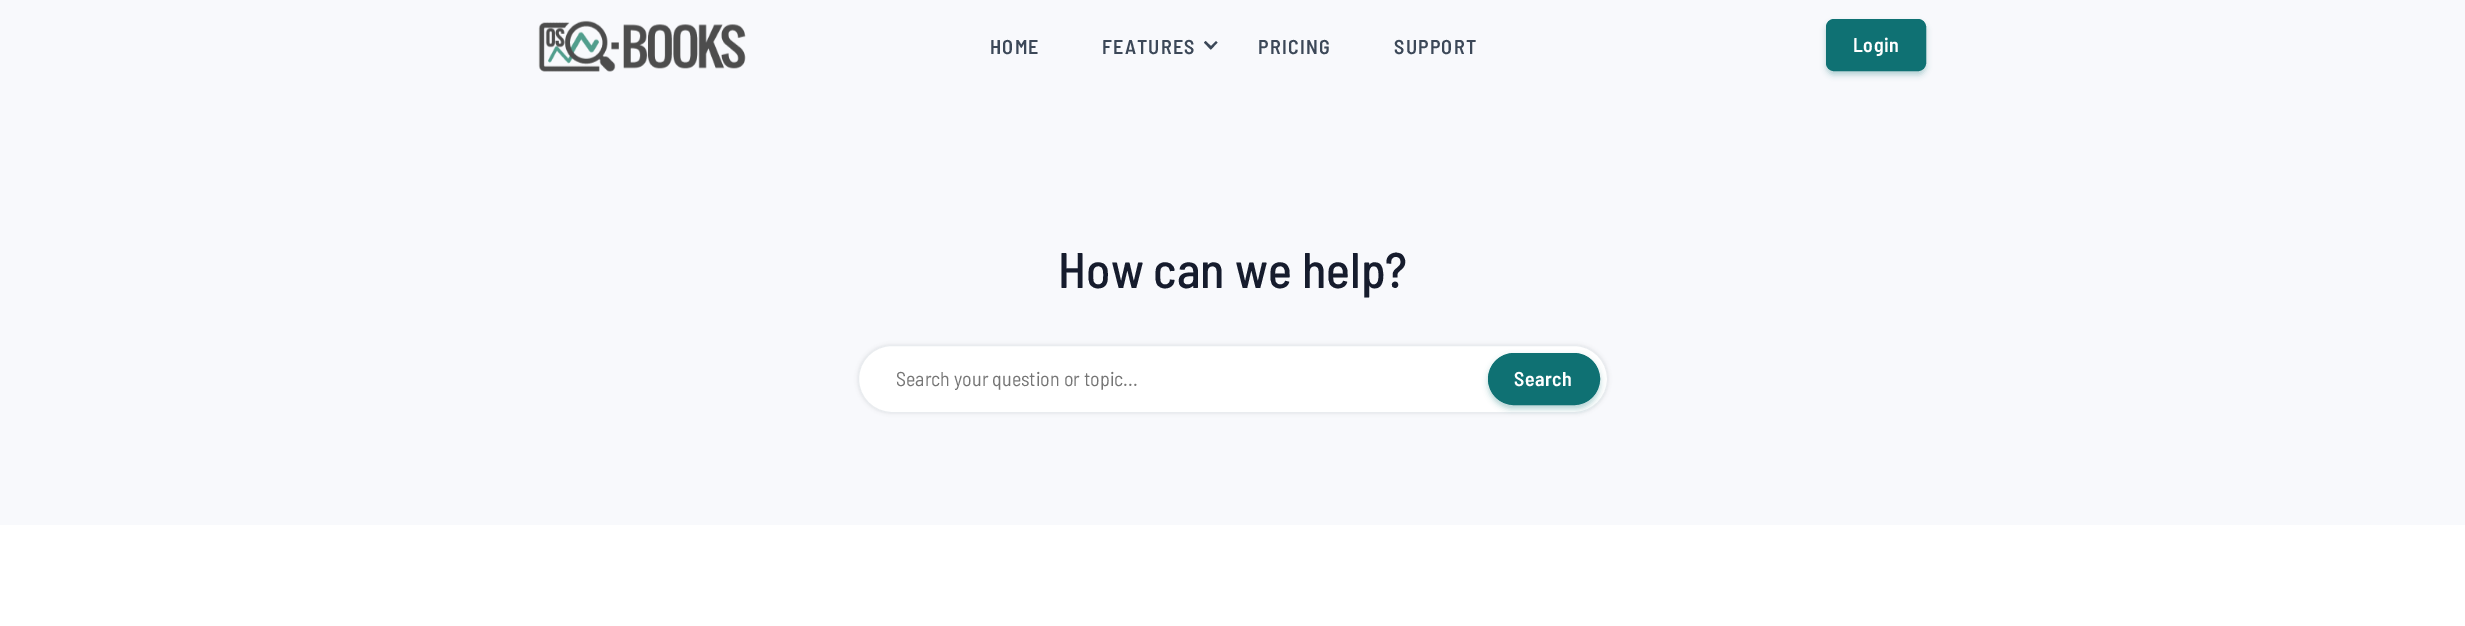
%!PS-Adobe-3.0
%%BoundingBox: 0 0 2465 626
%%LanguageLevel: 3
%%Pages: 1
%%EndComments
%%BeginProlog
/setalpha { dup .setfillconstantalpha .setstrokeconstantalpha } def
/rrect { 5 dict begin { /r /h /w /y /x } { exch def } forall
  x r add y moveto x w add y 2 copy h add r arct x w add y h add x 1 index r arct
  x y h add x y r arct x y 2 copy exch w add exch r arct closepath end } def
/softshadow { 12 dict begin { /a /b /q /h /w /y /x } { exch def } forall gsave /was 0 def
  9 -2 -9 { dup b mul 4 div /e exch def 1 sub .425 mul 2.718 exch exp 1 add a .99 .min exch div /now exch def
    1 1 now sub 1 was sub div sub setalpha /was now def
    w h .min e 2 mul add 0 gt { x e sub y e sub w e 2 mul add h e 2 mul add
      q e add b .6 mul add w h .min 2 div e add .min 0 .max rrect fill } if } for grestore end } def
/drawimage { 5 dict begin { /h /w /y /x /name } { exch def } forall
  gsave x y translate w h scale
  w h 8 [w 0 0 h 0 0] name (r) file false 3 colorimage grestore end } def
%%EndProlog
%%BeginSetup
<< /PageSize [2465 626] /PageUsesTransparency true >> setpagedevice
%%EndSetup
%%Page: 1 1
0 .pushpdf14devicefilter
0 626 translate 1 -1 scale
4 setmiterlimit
1 setgray
0 0 2465 626 rectfill
0.973 0.976 0.988 setrgbcolor
0 0 2465 525 rectfill
(images/1.raw) 538 20 208 52 drawimage
0.235 0.282 0.345 setrgbcolor
newpath 1216 41 moveto 1217.5 42.5 lineto 1211 49.5 lineto 1209.5 47.5 lineto closepath fill
newpath 1205.5 41 moveto 1212.5 47.5 lineto 1210.5 49.5 lineto 1204 42.5 lineto closepath fill
0.059 0.443 0.451 setrgbcolor
1826 23 100 52 8 3 0.3 softshadow
1826.5 19.5 99 51 7.5 rrect gsave fill grestore
stroke
0.235 0.282 0.345 setrgbcolor
858 345 750 68 34 2 0.15 softshadow
1 setgray
858.5 345.5 749 67 33.5 rrect gsave fill grestore
0.914 0.925 0.937 setrgbcolor
stroke
0.059 0.443 0.451 setrgbcolor
1488 356 112 53 26.5 3 0.3 softshadow
1488.5 353.5 111 51 25.5 rrect gsave fill grestore
stroke
/BarlowSemiCondensed-SemiBold [20 0 0 -20 0 0] selectfont
0.235 0.282 0.345 setrgbcolor
990 54 moveto 1.25 0 (HOME) ashow
1102 54 moveto 1.25 0 (FEATURES) ashow
1258 54 moveto 1.25 0 (PRICING) ashow
1394 54 moveto 1.25 0 (SUPPORT) ashow
1 setgray
1853 52 moveto 0.5 0 (Login) ashow
/BarlowSemiCondensed-Medium [50 0 0 -50 0 0] selectfont
0.086 0.11 0.176 setrgbcolor
1058 288 moveto (How can we help?) show
/BarlowSemiCondensed-Regular [20 0 0 -20 0 0] selectfont
0.459 setgray
896 386 moveto (Search your question or topic...) show
/BarlowSemiCondensed-SemiBold [20 0 0 -20 0 0] selectfont
1 setgray
1514 386 moveto 0.5 0 (Search) ashow
.poppdf14devicefilter showpage
%%EOF
